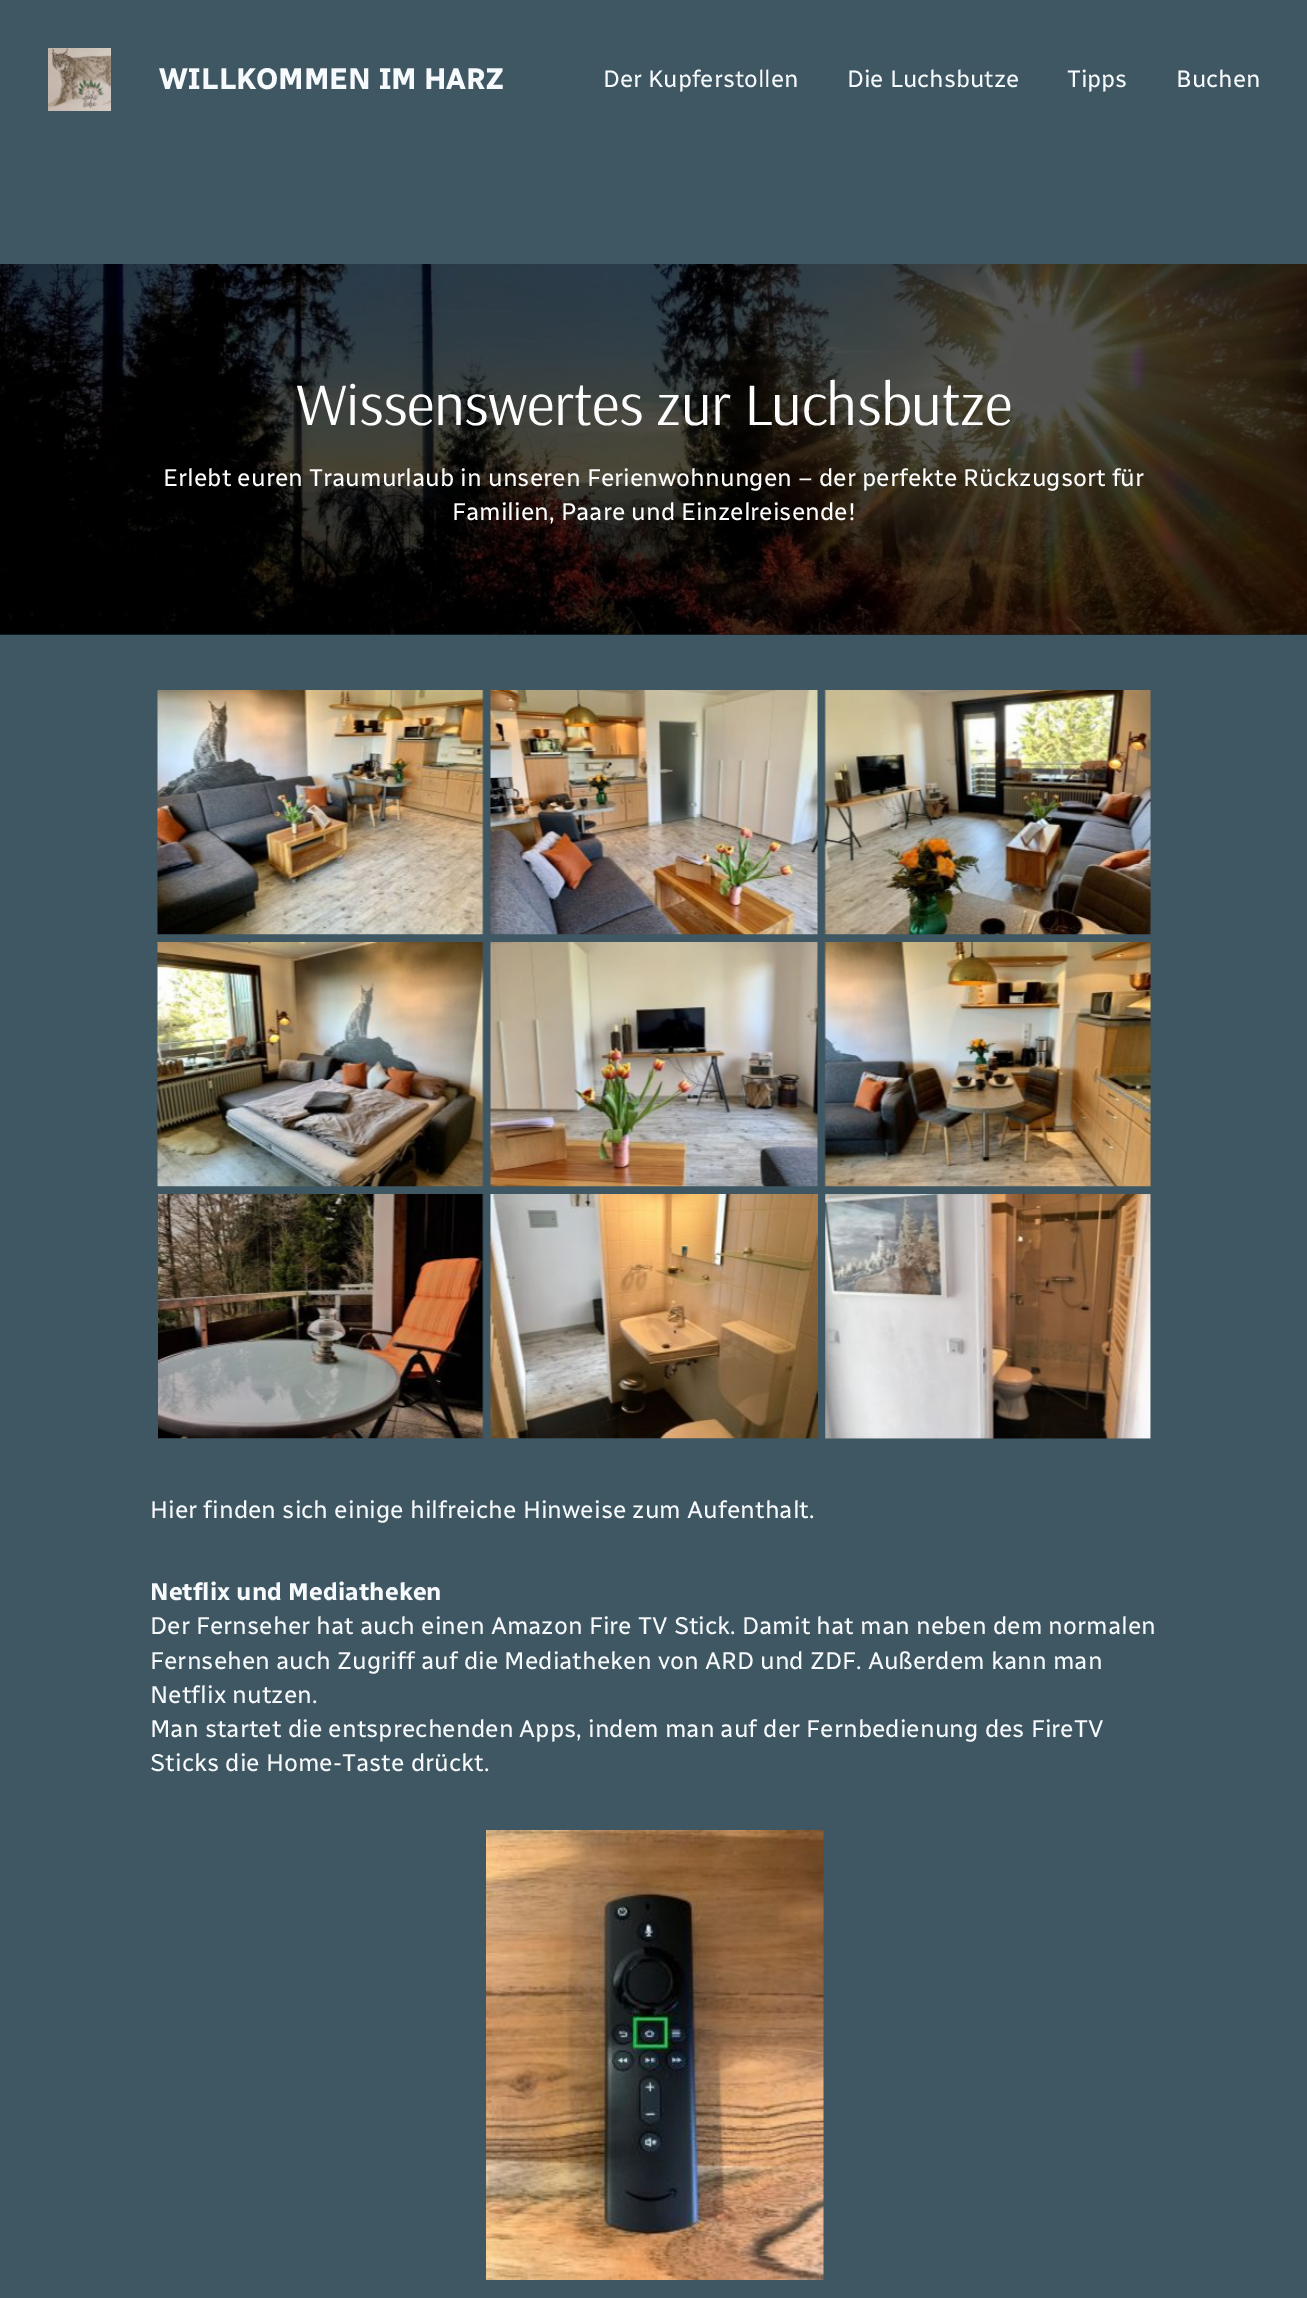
%!PS-Adobe-3.0
%%BoundingBox: 0 0 1307 2298
%%LanguageLevel: 3
%%Pages: 1
%%EndComments
%%BeginProlog
/drawimage { 5 dict begin { /h /w /y /x /name } { exch def } forall
  gsave x y translate w h scale
  w h 8 [w 0 0 h 0 0] name (r) file false 3 colorimage grestore end } def
%%EndProlog
%%BeginSetup
<< /PageSize [1307 2298] >> setpagedevice
%%EndSetup
%%Page: 1 1
0 2298 translate 1 -1 scale
4 setmiterlimit
0.247 0.341 0.384 setrgbcolor
0 0 1307 2298 rectfill
0.098 0.137 0.153 setrgbcolor
0 634 1307 1 rectfill
(images/1.raw) 48 48 63 63 drawimage
(images/2.raw) 0 264 1307 371 drawimage
(images/3.raw) 157 690 327 245 drawimage
(images/4.raw) 157 942 327 245 drawimage
(images/5.raw) 158 1194 326 245 drawimage
(images/6.raw) 490 690 328 245 drawimage
(images/7.raw) 490 942 328 245 drawimage
(images/8.raw) 490 1194 328 245 drawimage
(images/9.raw) 824 690 327 245 drawimage
(images/10.raw) 824 942 327 245 drawimage
(images/11.raw) 825 1194 326 245 drawimage
(images/12.raw) 486 1830 338 450 drawimage
/RadioCanada-Bold [30 0 0 -30 0 0] selectfont
0.969 0.98 0.988 setrgbcolor
159 89 moveto -0.25 0 (WILLKOMMEN IM HARZ) ashow
/RadioCanada-Regular [24 0 0 -24 0 0] selectfont
603 87 moveto (Der Kupferstollen) show
847 87 moveto (Die Luchsbutze) show
1067 87 moveto (Tipps) show
1176 87 moveto (Buchen) show
/Arsenal-Regular [60.25 0 0 -60.25 0 0] selectfont
0.992 setgray
296 425 moveto -0.6 0 (Wissenswertes zur Luchsbutze) ashow
/RadioCanada-Regular [24.45 0 0 -24.45 0 0] selectfont
163 486 moveto (Erlebt euren Traumurlaub in unseren Ferienwohnungen – der perfekte Rückzugsort für) show
452 520 moveto (Familien, Paare und Einzelreisende!) show
0.969 0.98 0.988 setrgbcolor
150 1518 moveto (Hier finden sich einige hilfreiche Hinweise zum Aufenthalt.) show
/RadioCanada-Bold [24.45 0 0 -24.45 0 0] selectfont
150 1600 moveto (Netflix und Mediatheken) show
/RadioCanada-Regular [24.45 0 0 -24.45 0 0] selectfont
150 1634 moveto (Der Fernseher hat auch einen Amazon Fire TV Stick. Damit hat man neben dem normalen) show
150 1669 moveto (Fernsehen auch Zugriff auf die Mediatheken von ARD und ZDF. Außerdem kann man) show
150 1703 moveto (Netflix nutzen.) show
150 1737 moveto (Man startet die entsprechenden Apps, indem man auf der Fernbedienung des FireTV) show
150 1771 moveto (Sticks die Home-Taste drückt.) show
showpage
%%EOF
